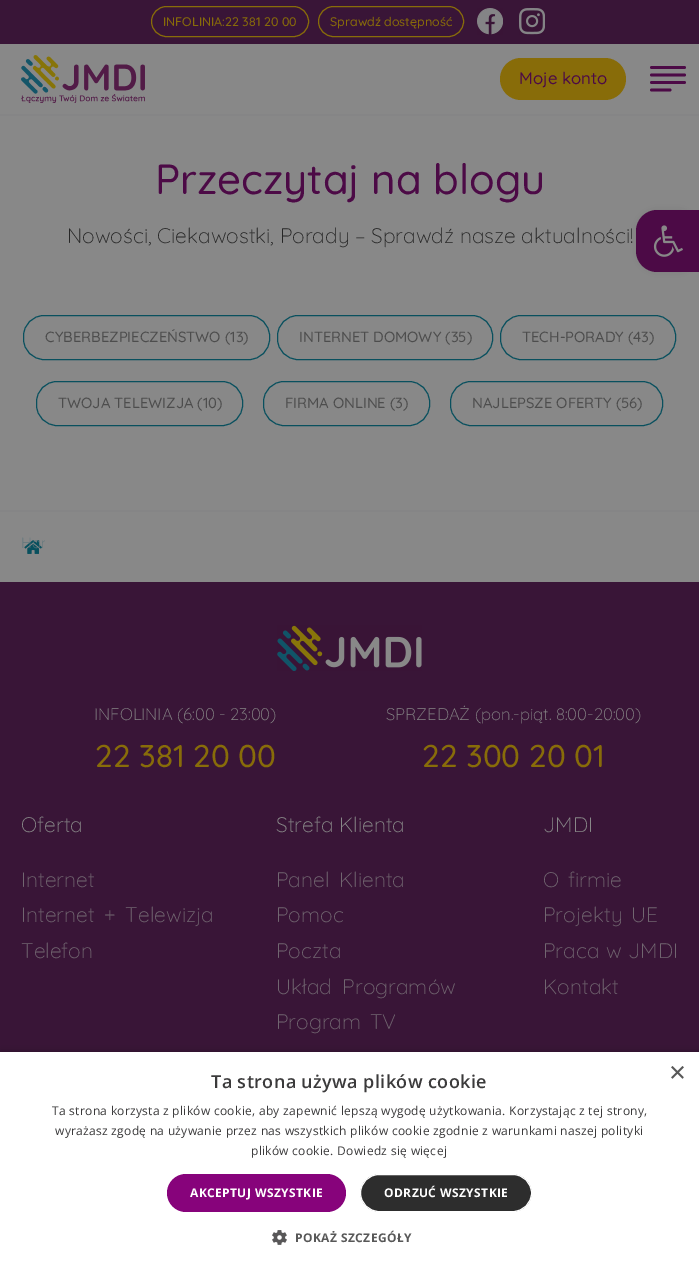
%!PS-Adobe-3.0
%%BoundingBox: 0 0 699 1271
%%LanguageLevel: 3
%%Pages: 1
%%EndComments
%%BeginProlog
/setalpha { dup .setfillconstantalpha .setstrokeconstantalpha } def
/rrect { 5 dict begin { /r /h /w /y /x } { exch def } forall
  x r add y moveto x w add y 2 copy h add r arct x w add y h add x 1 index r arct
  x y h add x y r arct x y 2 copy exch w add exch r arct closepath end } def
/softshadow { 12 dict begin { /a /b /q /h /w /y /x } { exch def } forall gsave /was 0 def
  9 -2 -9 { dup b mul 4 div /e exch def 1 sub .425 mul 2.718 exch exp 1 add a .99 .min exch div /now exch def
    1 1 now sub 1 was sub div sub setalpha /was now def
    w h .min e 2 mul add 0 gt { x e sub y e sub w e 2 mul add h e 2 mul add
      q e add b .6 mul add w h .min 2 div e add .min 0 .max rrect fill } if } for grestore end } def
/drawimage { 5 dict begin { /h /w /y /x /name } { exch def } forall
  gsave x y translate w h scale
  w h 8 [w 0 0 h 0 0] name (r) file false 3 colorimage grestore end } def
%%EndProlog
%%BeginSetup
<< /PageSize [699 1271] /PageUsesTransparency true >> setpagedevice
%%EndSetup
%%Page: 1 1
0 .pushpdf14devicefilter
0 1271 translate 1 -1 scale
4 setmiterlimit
0.533 setgray
0 0 699 1271 rectfill
0.224 0.082 0.216 setrgbcolor
0 0 699 44 rectfill
0.533 0.424 0.035 setrgbcolor
151.5 6.5 157 30 15 rrect stroke
318.5 6.5 145 30 15 rrect stroke
(images/1.raw) 477 8 26 27 drawimage
(images/2.raw) 519 8 26 27 drawimage
0.522 0.522 0.525 setrgbcolor
0 114 699 2 rectfill
(images/3.raw) 21 55 124 48 drawimage
0.298 0.039 0.275 setrgbcolor
2.8 setlinewidth
1 setlinecap
1 setlinejoin
newpath 651.5 67.5 moveto 684.5 67.5 lineto 651.5 90 moveto 670 90 lineto 651.5 82.5 moveto 684.5 82.5 lineto 651.5 75 moveto 684.5 75 lineto stroke
0.533 0.424 0.035 setrgbcolor
500 58 126 42 21 rrect fill
0.035 0.314 0.369 setrgbcolor
1 setlinewidth
0 setlinecap
0 setlinejoin
23.5 315.5 246 44 20.5 rrect stroke
277.5 315.5 215 44 20.5 rrect stroke
500.5 315.5 175 44 20.5 rrect stroke
36.5 381.5 206 44 20.5 rrect stroke
263.5 381.5 166 44 20.5 rrect stroke
450.5 381.5 212 44 20.5 rrect stroke
0.522 0.522 0.525 setrgbcolor
0 510 699 2 rectfill
(images/4.raw) 24 540 18 14 drawimage
0.035 setgray
636 210 63 62 21 5 0.1 softshadow
0.298 0.039 0.275 setrgbcolor
newpath 657 210 moveto 699 210 lineto 699 272 lineto 657 272 lineto 645.5 272 636 262.5 636 251 curveto 636 231 lineto 636 219.5 645.5 210 657 210 curveto closepath fill
(images/5.raw) 653 225 30 32 drawimage
0.224 0.082 0.216 setrgbcolor
0 582 699 470 rectfill
(images/6.raw) 277 625 145 46 drawimage
0 setgray
1 1054 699 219 0 4 0.35 softshadow
1 setgray
0 1052 699 219 rectfill
0.529 0.012 0.482 setrgbcolor
167 1174 179 38 19 rrect fill
0.176 setgray
360.5 1174.5 171 37 18.5 rrect gsave fill grestore
1 setgray
stroke
(images/7.raw) 272 1230 15 15 drawimage
/Quicksand-Medium [12.5 0 0 -12.5 0 0] selectfont
0.533 0.424 0.035 setrgbcolor
163 26 moveto (INFOLINIA:22 381 20 00) show
330 26 moveto (Sprawdź dostępność) show
/Quicksand-Medium [16.75 0 0 -16.75 0 0] selectfont
0.298 0.039 0.275 setrgbcolor
519 84 moveto (Moje konto) show
/Quicksand-Medium [42 0 0 -42 0 0] selectfont
155 194 moveto (Przeczytaj na blogu) show
/Quicksand-Light [21 0 0 -21 0 0] selectfont
0.149 setgray
67 243 moveto (Nowości, Ciekawostki, Porady – Sprawdź nasze aktualności!) show
/Quicksand-Medium [14.75 0 0 -14.75 0 0] selectfont
0.302 setgray
45 342 moveto (CYBERBEZPIECZEŃSTWO \(13\)) show
299 342 moveto (INTERNET DOMOWY \(35\)) show
522 342 moveto (TECH-PORADY \(43\)) show
58 408 moveto (TWOJA TELEWIZJA \(10\)) show
285 408 moveto (FIRMA ONLINE \(3\)) show
472 408 moveto (NAJLEPSZE OFERTY \(56\)) show
gsave
21 535 24 24 rectclip
/Quicksand-Light [15 0 0 -15 0 0] selectfont
0.373 0.463 0.482 setrgbcolor
21 548 moveto (Hom) show
grestore
/Quicksand-Light [16.75 0 0 -16.75 0 0] selectfont
0.533 setgray
94 720 moveto (INFOLINIA \(6:00 - 23:00\)) show
/Quicksand-Medium [31.5 0 0 -31.5 0 0] selectfont
0.533 0.424 0.035 setrgbcolor
95 767 moveto (22 381 20 00) show
/Quicksand-Light [16.75 0 0 -16.75 0 0] selectfont
0.533 setgray
386 720 moveto (SPRZEDAŻ \(pon.-piąt. 8:00-20:00\)) show
/Quicksand-Medium [31.5 0 0 -31.5 0 0] selectfont
0.533 0.424 0.035 setrgbcolor
422 767 moveto (22 300 20 01) show
/Quicksand-Light [21 0 0 -21 0 0] selectfont
0.533 setgray
21 832 moveto (Oferta) show
0.443 0.4 0.439 setrgbcolor
21 887 moveto (Internet) show
21 922 moveto 4 0 32 (Internet + Telewizja) widthshow
21 958 moveto (Telefon) show
0.533 setgray
276 832 moveto (Strefa Klienta) show
0.443 0.4 0.439 setrgbcolor
276 887 moveto 4 0 32 (Panel Klienta) widthshow
276 922 moveto (Pomoc) show
276 958 moveto (Poczta) show
276 994 moveto 5 0 32 (Układ Programów) widthshow
276 1029 moveto 3 0 32 (Program TV) widthshow
0.533 setgray
543 832 moveto (JMDI) show
0.443 0.4 0.439 setrgbcolor
543 887 moveto 3 0 32 (O firmie) widthshow
543 922 moveto 3 0 32 (Projekty UE) widthshow
543 958 moveto 1 0 32 (Praca w JMDI) widthshow
543 994 moveto (Kontakt) show
/LiberationSans-Regular [29 0 0 -29 0 0] selectfont
0.345 setgray
669 1082 moveto (×) show
/OpenSans-SemiBold [18 0 0 -18 0 0] selectfont
0.231 0.227 0.231 setrgbcolor
211 1088 moveto 0.4 0 (Ta strona używa plików cookie) ashow
/OpenSans-Regular [12 0 0 -12 0 0] selectfont
52 1115 moveto 0.3 0 (Ta strona korzysta z plików cookie, aby zapewnić lepszą wygodę użytkowania. Korzystając z tej strony,) ashow
55 1135 moveto 0.3 0 (wyrażasz zgodę na używanie przez nas wszystkich plików cookie zgodnie z warunkami naszej polityki) ashow
251 1155 moveto 0.3 0 (plików cookie. Dowiedz się więcej) ashow
/OpenSans-Bold [12 0 0 -12 0 0] selectfont
1 setgray
190 1197 moveto 0.4 0 (AKCEPTUJ WSZYSTKIE) ashow
384 1197 moveto 0.4 0 (ODRZUĆ WSZYSTKIE) ashow
0.345 setgray
295 1242 moveto 0.4 0 (POKAŻ SZCZEGÓŁY) ashow
.poppdf14devicefilter showpage
%%EOF
